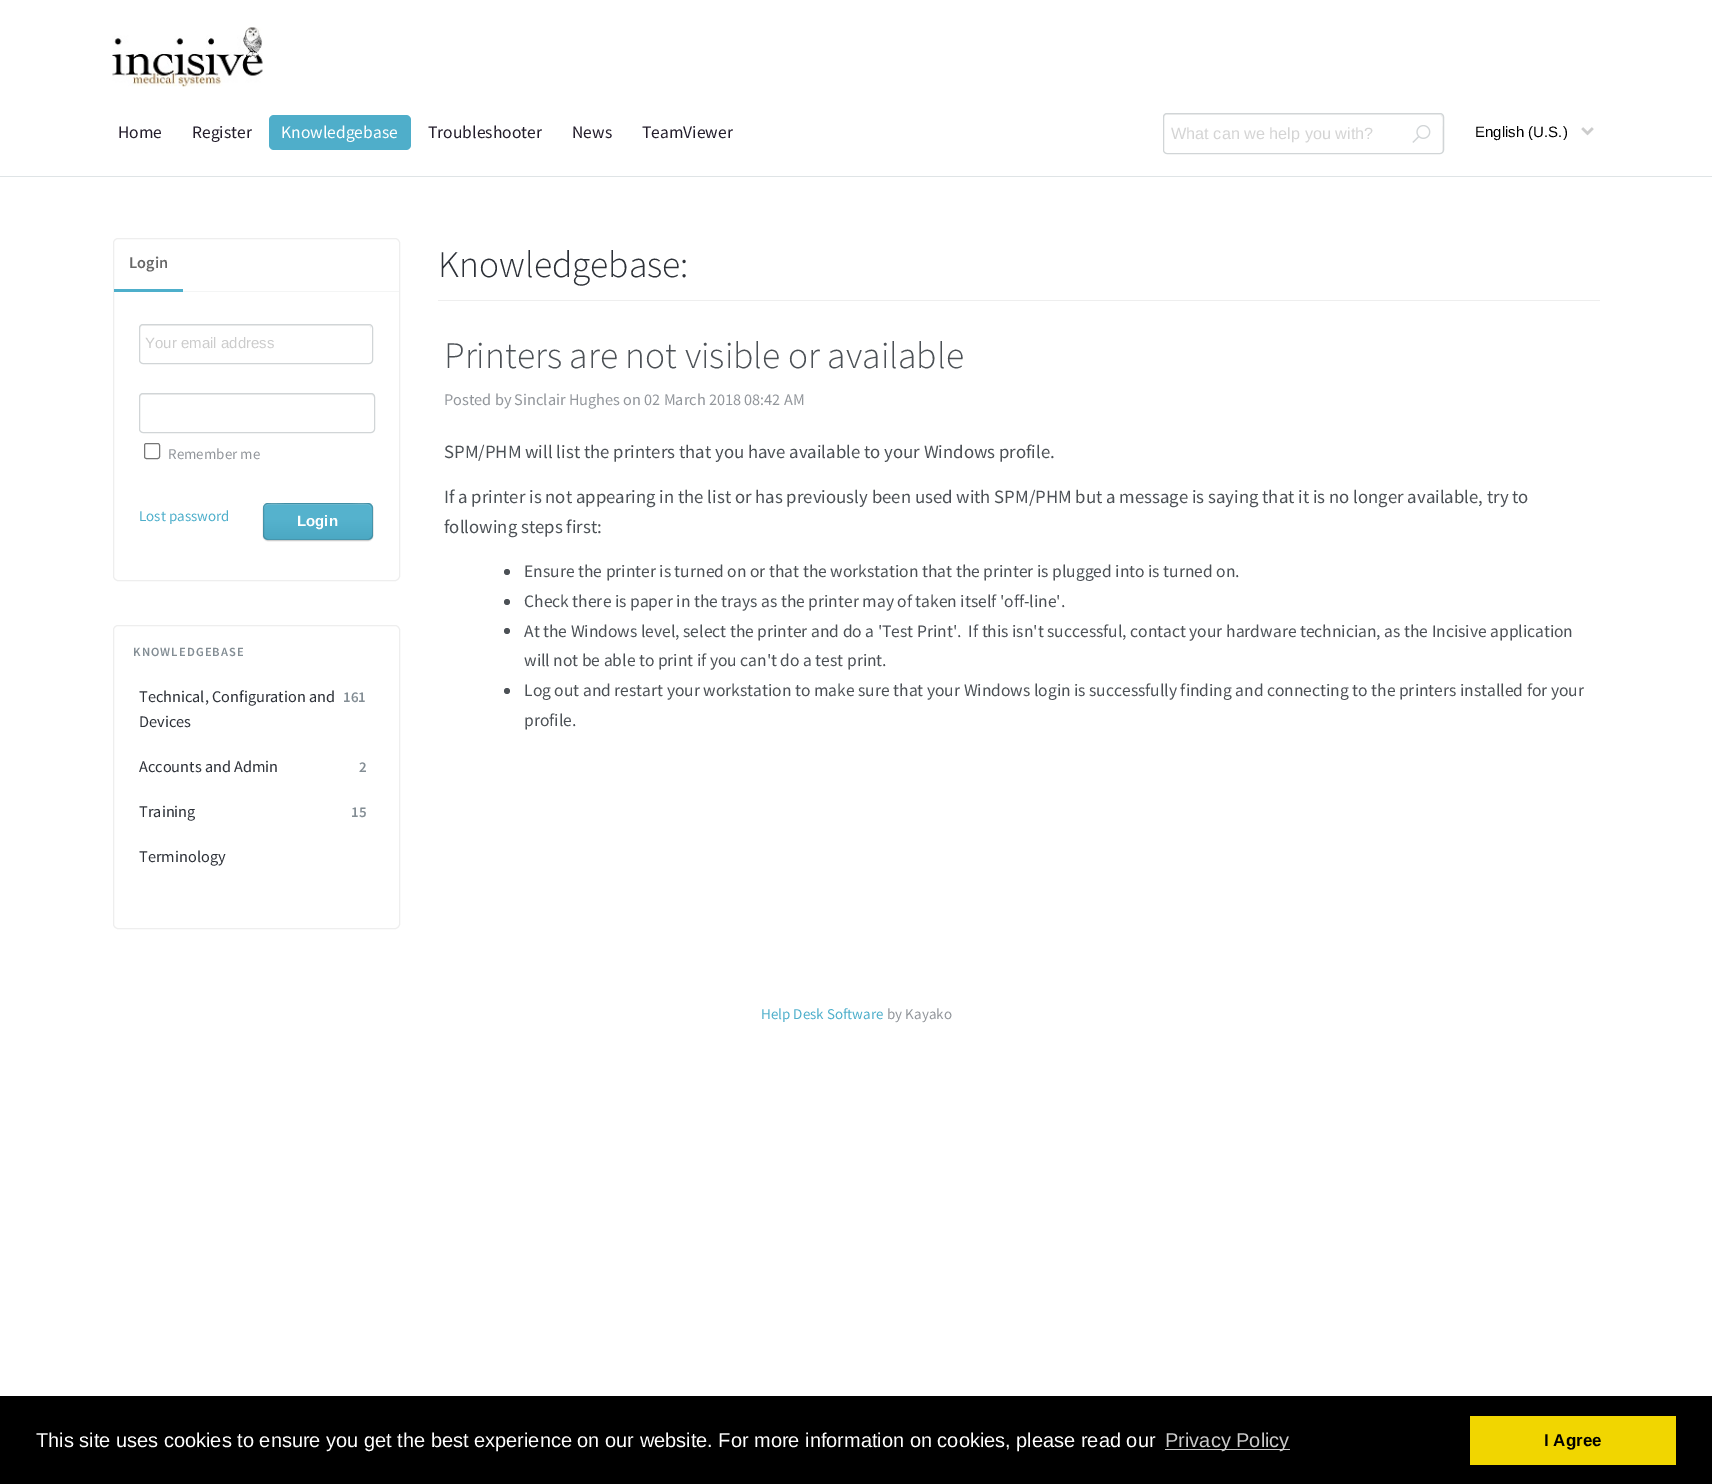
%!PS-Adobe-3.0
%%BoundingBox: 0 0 1712 1484
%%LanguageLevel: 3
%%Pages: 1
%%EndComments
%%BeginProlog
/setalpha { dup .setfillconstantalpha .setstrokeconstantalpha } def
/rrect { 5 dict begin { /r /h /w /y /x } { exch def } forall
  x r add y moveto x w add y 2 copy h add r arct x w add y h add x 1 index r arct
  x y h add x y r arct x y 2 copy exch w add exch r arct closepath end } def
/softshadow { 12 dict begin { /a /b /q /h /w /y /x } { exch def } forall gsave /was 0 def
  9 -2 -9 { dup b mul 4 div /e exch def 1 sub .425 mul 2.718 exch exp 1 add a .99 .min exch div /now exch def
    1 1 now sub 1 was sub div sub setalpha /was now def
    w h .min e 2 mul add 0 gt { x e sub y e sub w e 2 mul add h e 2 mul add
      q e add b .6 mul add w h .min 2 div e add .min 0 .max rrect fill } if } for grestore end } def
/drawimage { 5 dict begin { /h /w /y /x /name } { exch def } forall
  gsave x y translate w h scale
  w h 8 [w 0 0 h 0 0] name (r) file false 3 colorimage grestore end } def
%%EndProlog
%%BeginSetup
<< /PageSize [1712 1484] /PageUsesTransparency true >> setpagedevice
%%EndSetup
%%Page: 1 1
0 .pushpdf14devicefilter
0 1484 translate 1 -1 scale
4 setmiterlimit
1 setgray
0 0 1712 1484 rectfill
(images/1.raw) 112 27 151 60 drawimage
0.875 0.894 0.902 setrgbcolor
0 176 1712 1 rectfill
0.31 0.682 0.792 setrgbcolor
269 115 142 35 5 rrect fill
0.941 setgray
newpath 1166 115 moveto 1440 115 lineto 1444 115 1442 128 1442 129 curveto 1442 153 lineto 1442 152 1443 151 1443 150 curveto 1443 116 lineto 1443 115 1442 114 1440 114 curveto 1166 114 lineto 1165 114 1164 115 1164 116 curveto 1164 118 lineto 1164 116 1165 115 1166 115 curveto closepath fill
0.82 0.835 0.843 setrgbcolor
1163.5 113.5 280 40 3.5 rrect stroke
(images/2.raw) 1412 125 19 18 drawimage
(images/3.raw) 1581 127 13 9 drawimage
0.933 setgray
113.5 238.5 286 342 4.5 rrect stroke
0.957 0.961 0.961 setrgbcolor
183 291 216 1 rectfill
0.306 0.686 0.796 setrgbcolor
114 289 69 3 rectfill
0.941 setgray
newpath 142 326 moveto 369 326 lineto 370 326 371 327 371 329 curveto 371 327 371 325 368 325 curveto 142 325 lineto 140 325 140 327 140 329 curveto 140 327 141 326 142 326 curveto closepath fill
0.82 0.835 0.843 setrgbcolor
139.5 324.5 233 39 3.5 rrect stroke
0.941 setgray
newpath 142 395 moveto 371 395 lineto 373 395 374 396 374 398 curveto 374 396 374 394 372 394 curveto 142 394 lineto 140 394 140 396 140 398 curveto 140 396 141 395 142 395 curveto closepath fill
0.82 0.835 0.843 setrgbcolor
139.5 393.5 235 39 3.5 rrect stroke
0.463 setgray
144.5 443.5 15 15 2 rrect stroke
0 setgray
263 504 110 37 5 0.5 0.18 softshadow
0.306 0.686 0.796 setrgbcolor
263 503 110 37 5 rrect fill
0.04 setalpha
gsave newpath 263 503 moveto 373 503 lineto 373 504 lineto 263 504 lineto closepath clip newpath
<< /ShadingType 2 /ColorSpace /DeviceRGB /Coords [318 504 318 469] /Extend [true true] /Function << /FunctionType 3 /Domain [0 1] /Functions [<< /FunctionType 2 /Domain [0 1] /C0 [0 0 0] /C1 [1 1 1] /N 1 >> << /FunctionType 2 /Domain [0 1] /C0 [1 1 1] /C1 [1 1 1] /N 1 >>] /Bounds [0.57] /Encode [0 1 0 1] >> >> shfill grestore
gsave newpath 263 504 moveto 373 504 lineto 373 539 lineto 263 539 lineto closepath clip newpath
<< /ShadingType 2 /ColorSpace /DeviceRGB /Coords [318 539 318 504] /Extend [true true] /Function << /FunctionType 3 /Domain [0 1] /Functions [<< /FunctionType 2 /Domain [0 1] /C0 [0 0 0] /C1 [1 1 1] /N 1 >> << /FunctionType 2 /Domain [0 1] /C0 [1 1 1] /C1 [1 1 1] /N 1 >>] /Bounds [0.57] /Encode [0 1 0 1] >> >> shfill grestore
gsave newpath 263 539 moveto 373 539 lineto 373 540 lineto 263 540 lineto closepath clip newpath
<< /ShadingType 2 /ColorSpace /DeviceRGB /Coords [318 574 318 539] /Extend [true true] /Function << /FunctionType 3 /Domain [0 1] /Functions [<< /FunctionType 2 /Domain [0 1] /C0 [0 0 0] /C1 [1 1 1] /N 1 >> << /FunctionType 2 /Domain [0 1] /C0 [1 1 1] /C1 [1 1 1] /N 1 >>] /Bounds [0.57] /Encode [0 1 0 1] >> >> shfill grestore
0.16 setalpha
1 setgray
newpath 268 505 moveto 368 505 lineto 370 505 371 507 371 509 curveto 371 500 354 504 350 504 curveto 284 504 lineto 281 504 264 500 264 509 curveto 264 507 265 505 268 505 curveto closepath fill
0 setgray
263.5 503.5 109 36 4.5 rrect stroke
1 setalpha
0.933 setgray
113.5 625.5 286 303 4.5 rrect stroke
438 300 1162 1 rectfill
0.298 0.318 0.337 setrgbcolor
newpath 507 572 3 0 360 arc closepath fill
newpath 507 602 3 0 360 arc closepath fill
newpath 507 631 3 0 360 arc closepath fill
newpath 507 691 3 0 360 arc closepath fill
0 setgray
0 1396 1712 88 rectfill
0.8 setgray
1165 1449 125 1 rectfill
0.945 0.839 0 setrgbcolor
1470 1416 206 49 rectfill
/SourceSansPro-Regular [17.5 0 0 -17.5 0 0] selectfont
0.137 0.114 0.169 setrgbcolor
118 138 moveto (Home) show
192 138 moveto (Register) show
1 setgray
281 138 moveto (Knowledgebase) show
0.137 0.114 0.169 setrgbcolor
428 138 moveto (Troubleshooter) show
572 138 moveto (News) show
642 138 moveto (TeamViewer) show
/LiberationSans-Regular [16.25 0 0 -16.25 0 0] selectfont
0.831 setgray
1171 139 moveto (What can we help you with?) show
/LiberationSans-Regular [15 0 0 -15 0 0] selectfont
0 setgray
1475 137 moveto (English \(U.S.\)) show
/SourceSansPro-SemiBold [16.25 0 0 -16.25 0 0] selectfont
0.404 setgray
129 268 moveto (Login) show
/LiberationSans-Regular [15 0 0 -15 0 0] selectfont
0.8 setgray
145 348 moveto (Your email address) show
/SourceSansPro-Regular [15 0 0 -15 0 0] selectfont
0.573 0.588 0.608 setrgbcolor
168 459 moveto (Remember me) show
0.306 0.686 0.796 setrgbcolor
139 521 moveto (Lost password) show
/LiberationSans-Bold [15 0 0 -15 0 0] selectfont
1 setgray
297 526 moveto (Login) show
/SourceSansPro-SemiBold [12.5 0 0 -12.5 0 0] selectfont
0.514 0.553 0.58 setrgbcolor
133 656 moveto 1.1 0 (KNOWLEDGEBASE) ashow
/SourceSansPro-Regular [16.25 0 0 -16.25 0 0] selectfont
0.176 0.192 0.22 setrgbcolor
139 702 moveto (Technical, Configuration and) show
/SourceSansPro-SemiBold [15 0 0 -15 0 0] selectfont
0.514 0.553 0.58 setrgbcolor
343 702 moveto (161) show
/SourceSansPro-Regular [16.25 0 0 -16.25 0 0] selectfont
0.176 0.192 0.22 setrgbcolor
139 727 moveto (Devices) show
139 772 moveto (Accounts and Admin) show
/SourceSansPro-SemiBold [15 0 0 -15 0 0] selectfont
0.514 0.553 0.58 setrgbcolor
359 772 moveto (2) show
/SourceSansPro-Regular [16.25 0 0 -16.25 0 0] selectfont
0.176 0.192 0.22 setrgbcolor
139 817 moveto (Training) show
/SourceSansPro-SemiBold [15 0 0 -15 0 0] selectfont
0.514 0.553 0.58 setrgbcolor
351 817 moveto (15) show
/SourceSansPro-Regular [16.25 0 0 -16.25 0 0] selectfont
0.176 0.192 0.22 setrgbcolor
139 862 moveto (Terminology) show
/SourceSansPro-Light [37.5 0 0 -37.5 0 0] selectfont
438 277 moveto (Knowledgebase:) show
0.298 0.318 0.337 setrgbcolor
444 368 moveto (Printers are not visible or available) show
/SourceSansPro-Regular [16.25 0 0 -16.25 0 0] selectfont
0.573 0.588 0.608 setrgbcolor
444 405 moveto (Posted by Sinclair Hughes on 02 March 2018 08:42 AM) show
/SourceSansPro-Regular [18.75 0 0 -18.75 0 0] selectfont
0.298 0.318 0.337 setrgbcolor
444 458 moveto (SPM/PHM will list the printers that you have available to your Windows profile.) show
444 503 moveto (If a printer is not appearing in the list or has previously been used with SPM/PHM but a message is saying that it is no longer available, try to) show
444 533 moveto (following steps first:) show
/SourceSansPro-Regular [17.5 0 0 -17.5 0 0] selectfont
524 577 moveto (Ensure the printer is turned on or that the workstation that the printer is plugged into is turned on.) show
524 607 moveto (Check there is paper in the trays as the printer may of taken itself 'off-line'.) show
524 637 moveto (At the Windows level, select the printer and do a 'Test Print'.  If this isn't successful, contact your hardware technician, as the Incisive application) show
524 666 moveto (will not be able to print if you can't do a test print.) show
524 696 moveto (Log out and restart your workstation to make sure that your Windows login is successfully finding and connecting to the printers installed for your) show
524 726 moveto (profile.) show
/SourceSansPro-Regular [15 0 0 -15 0 0] selectfont
0.306 0.686 0.796 setrgbcolor
761 1019 moveto (Help Desk Software) show
0.573 0.588 0.608 setrgbcolor
887 1019 moveto (by Kayako) show
/LiberationSans-Regular [20 0 0 -20 0 0] selectfont
1 setgray
36 1447 moveto (This site uses cookies to ensure you get the best experience on our website. For more information on cookies, please read our) show
0.8 setgray
1165 1447 moveto (Privacy Policy) show
/LiberationSans-Bold [17 0 0 -17 0 0] selectfont
0 setgray
1544 1446 moveto (I Agree) show
.poppdf14devicefilter showpage
%%EOF
